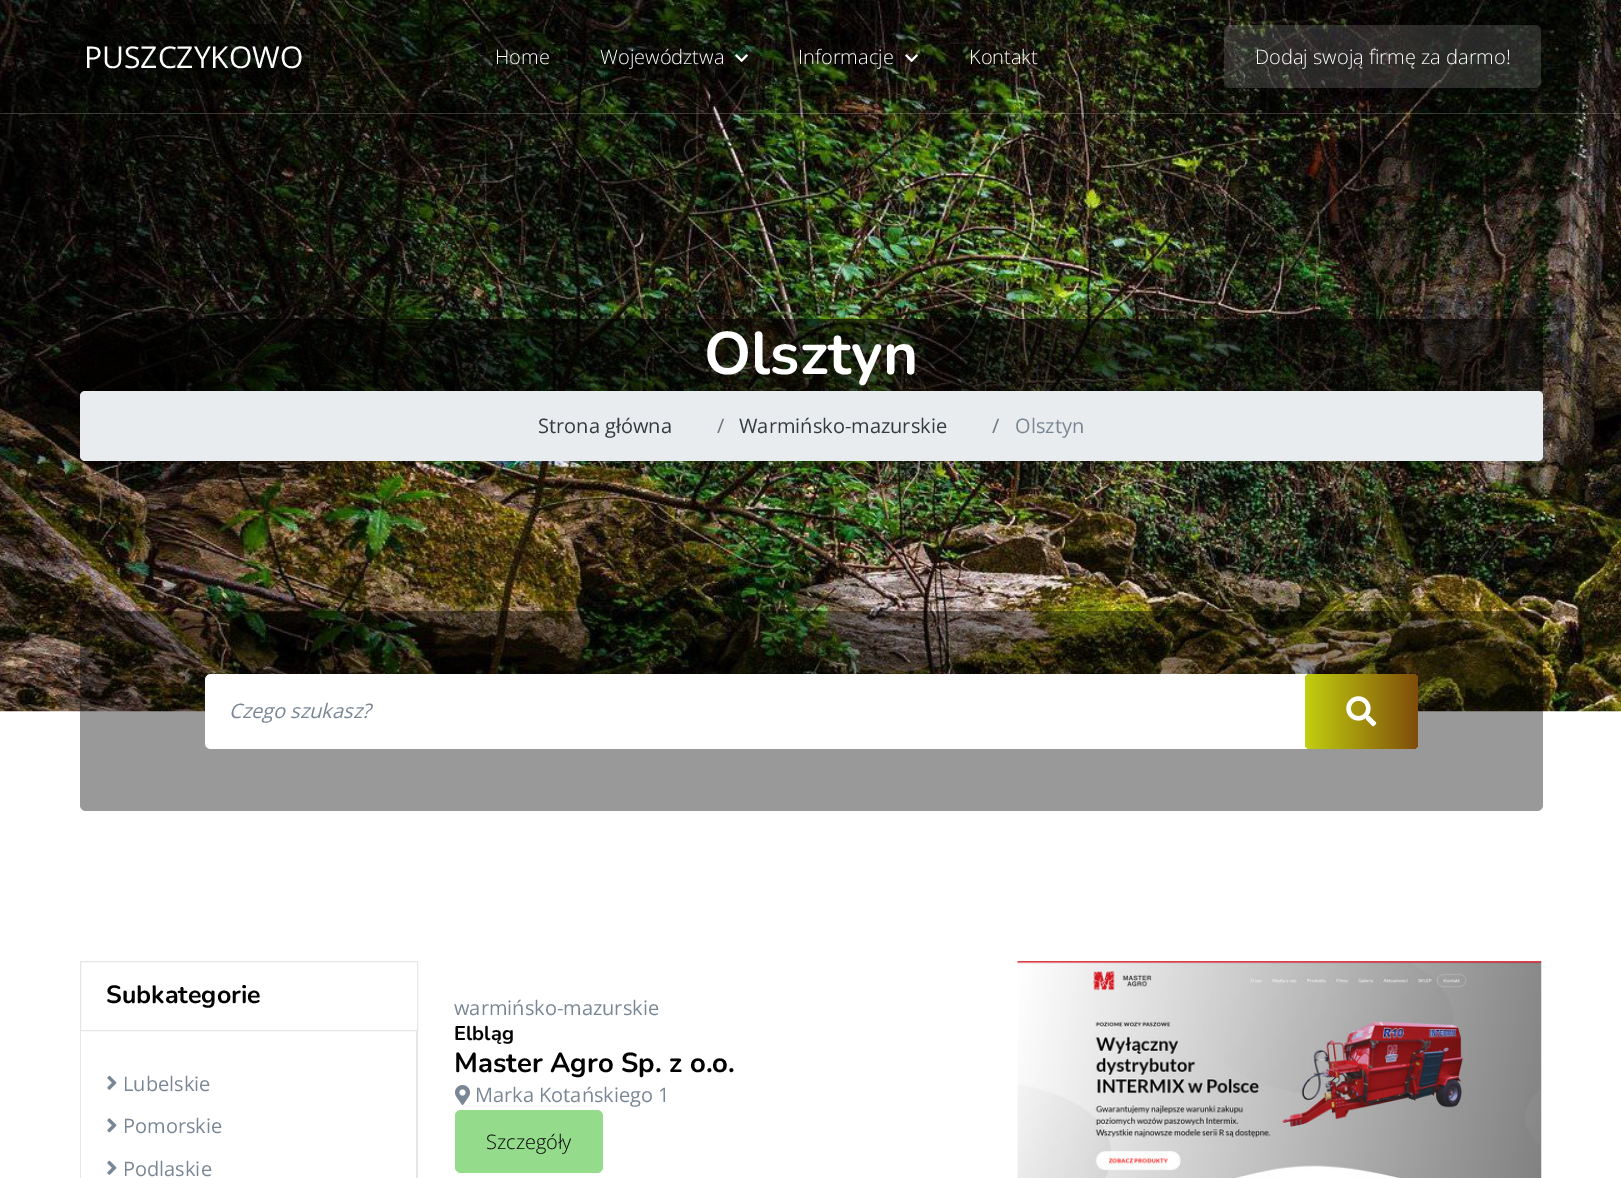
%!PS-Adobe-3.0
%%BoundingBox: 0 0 1621 1178
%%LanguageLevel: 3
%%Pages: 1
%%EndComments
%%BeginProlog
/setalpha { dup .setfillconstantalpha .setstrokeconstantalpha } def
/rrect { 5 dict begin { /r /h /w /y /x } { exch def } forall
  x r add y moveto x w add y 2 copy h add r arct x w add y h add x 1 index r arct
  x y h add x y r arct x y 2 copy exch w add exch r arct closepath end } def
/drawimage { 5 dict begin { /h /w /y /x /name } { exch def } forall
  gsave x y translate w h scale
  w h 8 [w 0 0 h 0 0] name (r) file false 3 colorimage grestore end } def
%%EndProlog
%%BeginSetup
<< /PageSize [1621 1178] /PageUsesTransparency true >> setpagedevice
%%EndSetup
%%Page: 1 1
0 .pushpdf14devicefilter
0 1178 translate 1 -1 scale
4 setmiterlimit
1 setgray
0 0 1621 1178 rectfill
(images/3.raw) 0 0 1621 712 drawimage
0.2 setalpha
0 113 1621 1 rectfill
0.4 setalpha
0 setgray
80 24 229 65 rectfill
1 setalpha
(images/1.raw) 735 54 13 8 drawimage
(images/2.raw) 905 54 13 8 drawimage
0.15 setalpha
1 setgray
1224 25 317 63 6 rrect fill
0.6 setalpha
0 setgray
80 319 1463 72 rectfill
1 setalpha
0.914 0.925 0.937 setrgbcolor
80 391 1463 70 5 rrect fill
0.4 setalpha
0 setgray
80 611 1463 200 6 rrect fill
1 setalpha
1 setgray
205 674 1213 75 6 rrect fill
gsave 1305 674 113 75 6 rrect clip newpath
<< /ShadingType 2 /ColorSpace /DeviceRGB /Coords [1305 711 1418 711] /Extend [true true] /Function << /FunctionType 2 /Domain [0 1] /C0 [0.761 0.816 0.059] /C1 [0.498 0.302 0.043] /N 1 >> >> shfill grestore
(images/4.raw) 1346 696 31 31 drawimage
0.902 setgray
80.5 961.5 337 69 rectstroke
newpath 418 1031 moveto 418 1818 lineto 416 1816 lineto 416 1031 lineto closepath fill
newpath 80 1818 moveto 80 1031 lineto 81 1031 lineto 81 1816 lineto closepath fill
(images/5.raw) 107 1075 10 15 drawimage
(images/6.raw) 107 1118 10 15 drawimage
(images/5.raw) 107 1160 10 15 drawimage
(images/7.raw) 455 1085 15 20 drawimage
0.58 0.859 0.549 setrgbcolor
455 1110 148 63 6 rrect fill
(images/8.raw) 1017 961 525 217 drawimage
/OpenSans-Regular [30 0 0 -30 0 0] selectfont
1 setgray
84 68 moveto (PUSZCZYKOWO) show
/OpenSans-Light [20 0 0 -20 0 0] selectfont
495 64 moveto (Home) show
600 64 moveto (Województwa) show
798 64 moveto (Informacje) show
969 64 moveto (Kontakt) show
1255 64 moveto (Dodaj swoją firmę za darmo!) show
/Nunito-Bold [60 0 0 -60 0 0] selectfont
704 374 moveto (Olsztyn) show
/OpenSans-Regular [20 0 0 -20 0 0] selectfont
0.204 0.227 0.251 setrgbcolor
538 433 moveto (Strona główna) show
0.424 0.459 0.49 setrgbcolor
717 433 moveto (/) show
0.204 0.227 0.251 setrgbcolor
739 433 moveto (Warmińsko-mazurskie) show
0.424 0.459 0.49 setrgbcolor
992 433 moveto (/) show
0.475 0.529 0.584 setrgbcolor
1015 433 moveto (Olsztyn) show
/OpenSans-Italic [20 0 0 -20 0 0] selectfont
229 718 moveto (Czego szukasz?) show
/Nunito-Bold [25 0 0 -25 0 0] selectfont
0.004 setgray
106 1003 moveto (Subkategorie) show
/OpenSans-Regular [20 0 0 -20 0 0] selectfont
0.475 0.529 0.584 setrgbcolor
123 1091 moveto (Lubelskie) show
123 1133 moveto (Pomorskie) show
123 1176 moveto (Podlaskie) show
454 1015 moveto (warmińsko-mazurskie) show
/Nunito-Bold [20 0 0 -20 0 0] selectfont
0.004 setgray
454 1040 moveto (Elbląg) show
/Nunito-Bold [27.5 0 0 -27.5 0 0] selectfont
454 1072 moveto (Master Agro Sp. z o.o.) show
/OpenSans-Regular [20 0 0 -20 0 0] selectfont
0.475 0.529 0.584 setrgbcolor
475 1102 moveto (Marka Kotańskiego 1) show
/OpenSans-Light [20 0 0 -20 0 0] selectfont
0.004 setgray
486 1149 moveto (Szczegóły) show
.poppdf14devicefilter showpage
%%EOF
